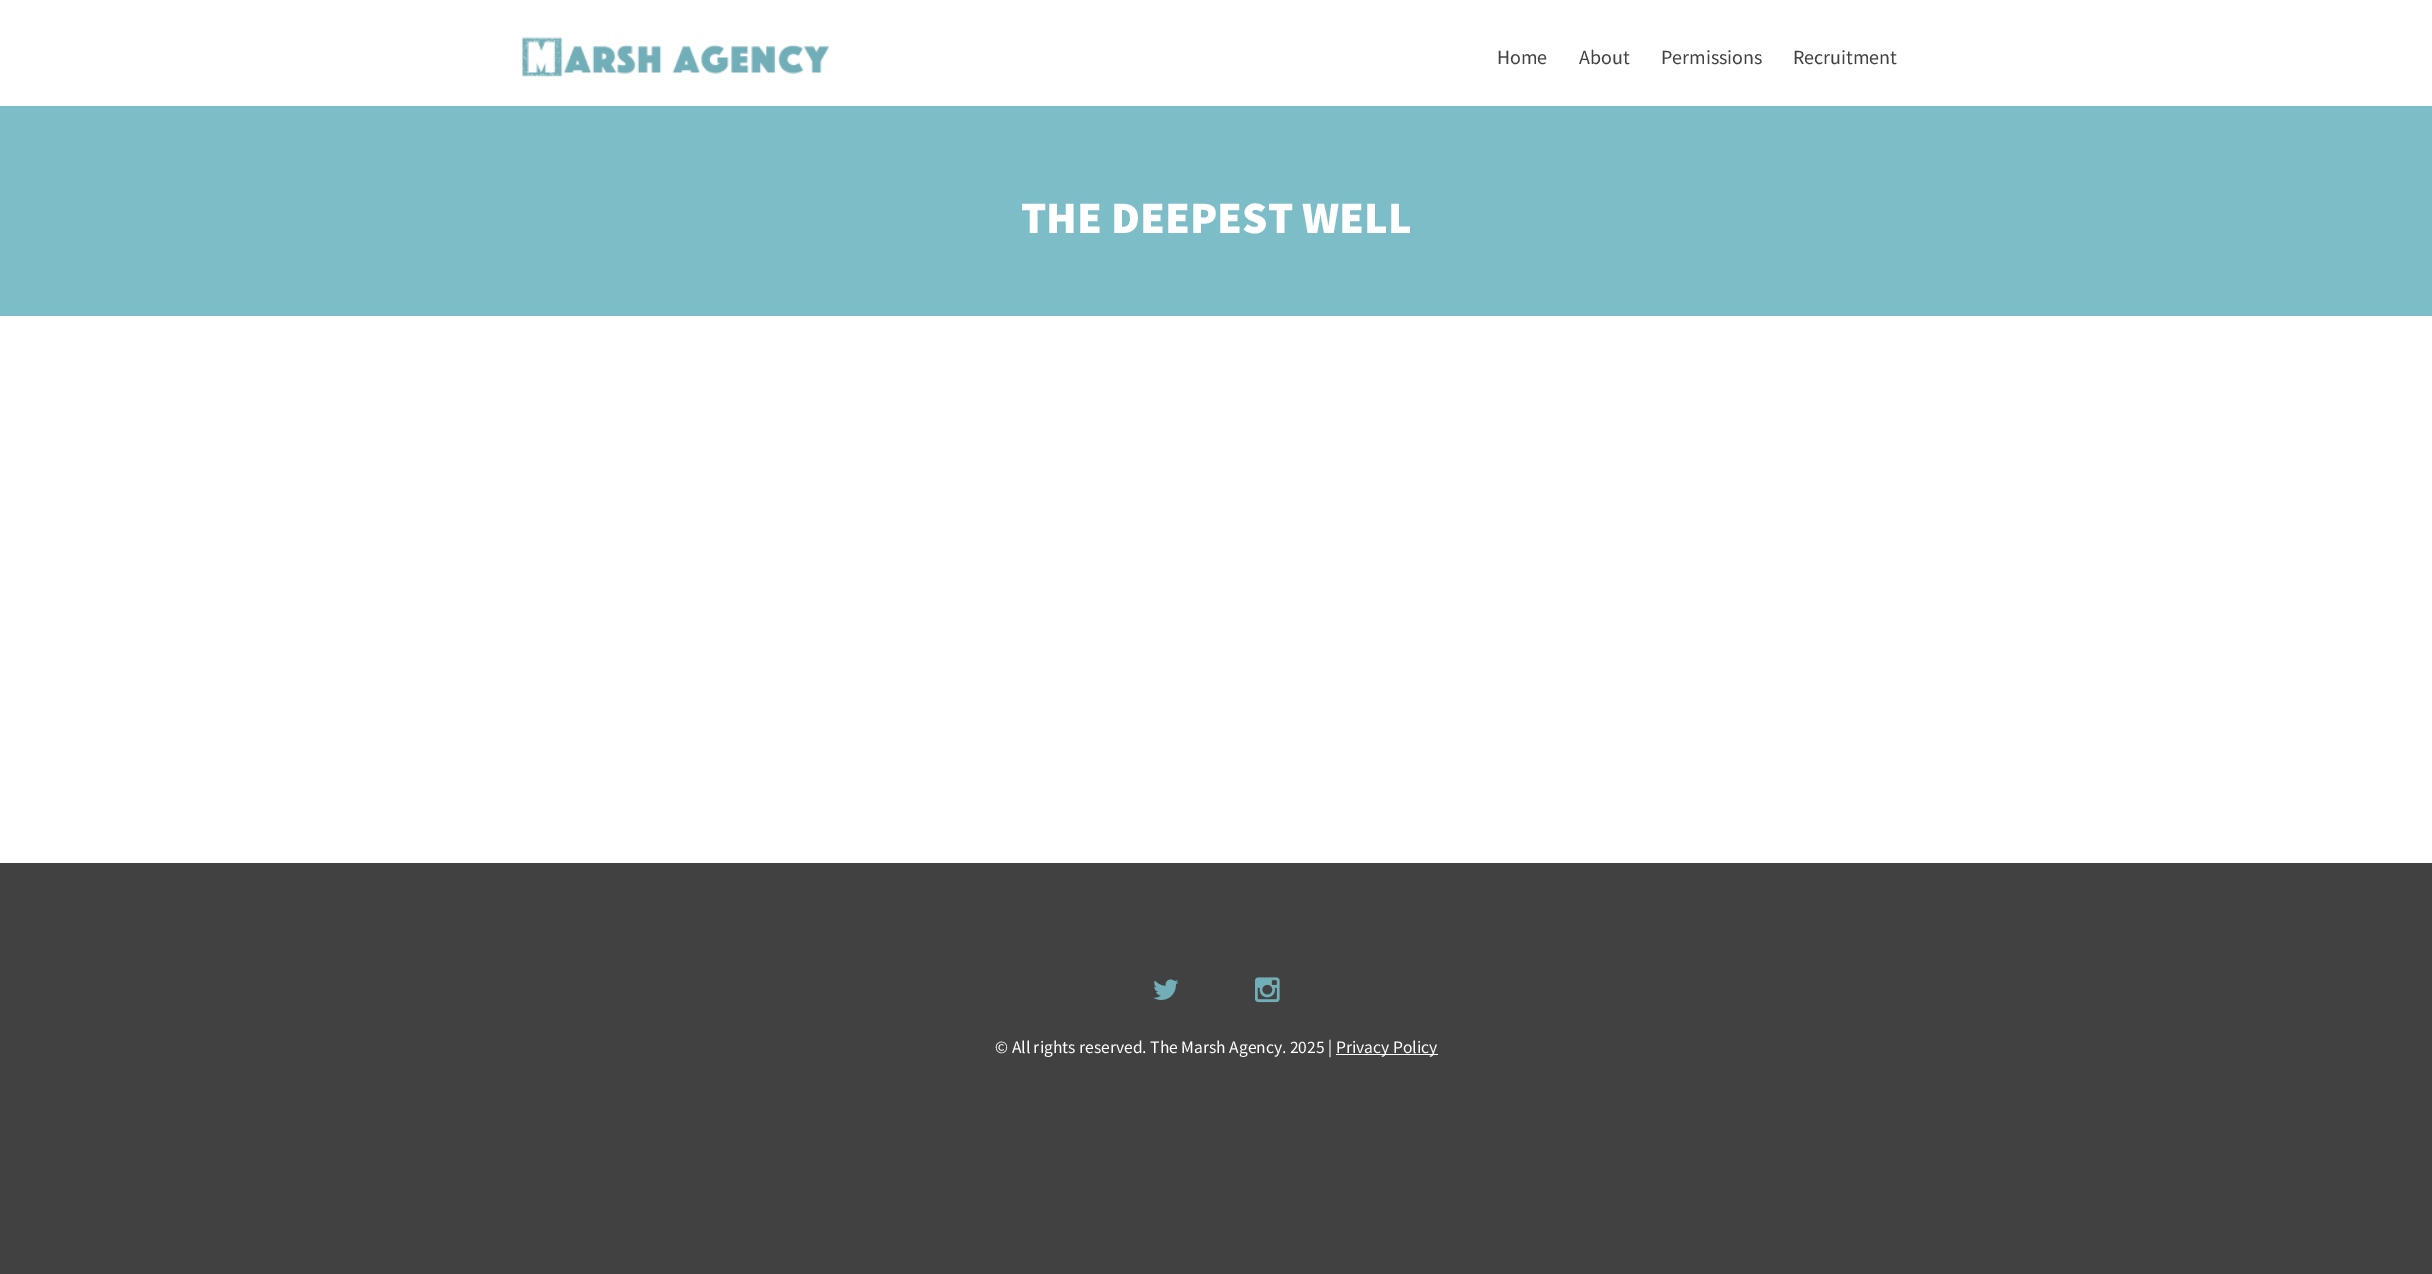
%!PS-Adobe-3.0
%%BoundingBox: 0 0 2432 1274
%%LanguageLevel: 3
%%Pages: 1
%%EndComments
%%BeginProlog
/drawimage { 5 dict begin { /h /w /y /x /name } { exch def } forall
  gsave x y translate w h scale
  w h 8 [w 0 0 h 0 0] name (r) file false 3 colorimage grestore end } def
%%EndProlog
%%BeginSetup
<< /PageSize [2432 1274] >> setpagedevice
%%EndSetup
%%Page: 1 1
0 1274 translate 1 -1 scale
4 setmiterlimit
1 setgray
0 0 2432 1274 rectfill
(images/1.raw) 522 37 307 40 drawimage
0.49 0.741 0.78 setrgbcolor
0 106 2432 210 rectfill
0.255 setgray
0 863 2432 411 rectfill
(images/2.raw) 1153 979 26 21 drawimage
(images/3.raw) 1255 977 25 26 drawimage
1 setgray
1336 1054 102 1 rectfill
/SourceSansPro-Regular [20 0 0 -20 0 0] selectfont
0.255 setgray
1497 64 moveto (Home) show
1579 64 moveto (About) show
1661 64 moveto (Permissions) show
1793 64 moveto (Recruitment) show
/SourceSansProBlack-Black [45 0 0 -45 0 0] selectfont
1 setgray
1021 233 moveto (THE DEEPEST WELL) show
/SourceSansPro-Regular [17.5 0 0 -17.5 0 0] selectfont
995 1053 moveto (© All rights reserved. The Marsh Agency. 2025 |) show
1336 1053 moveto (Privacy Policy) show
showpage
%%EOF
